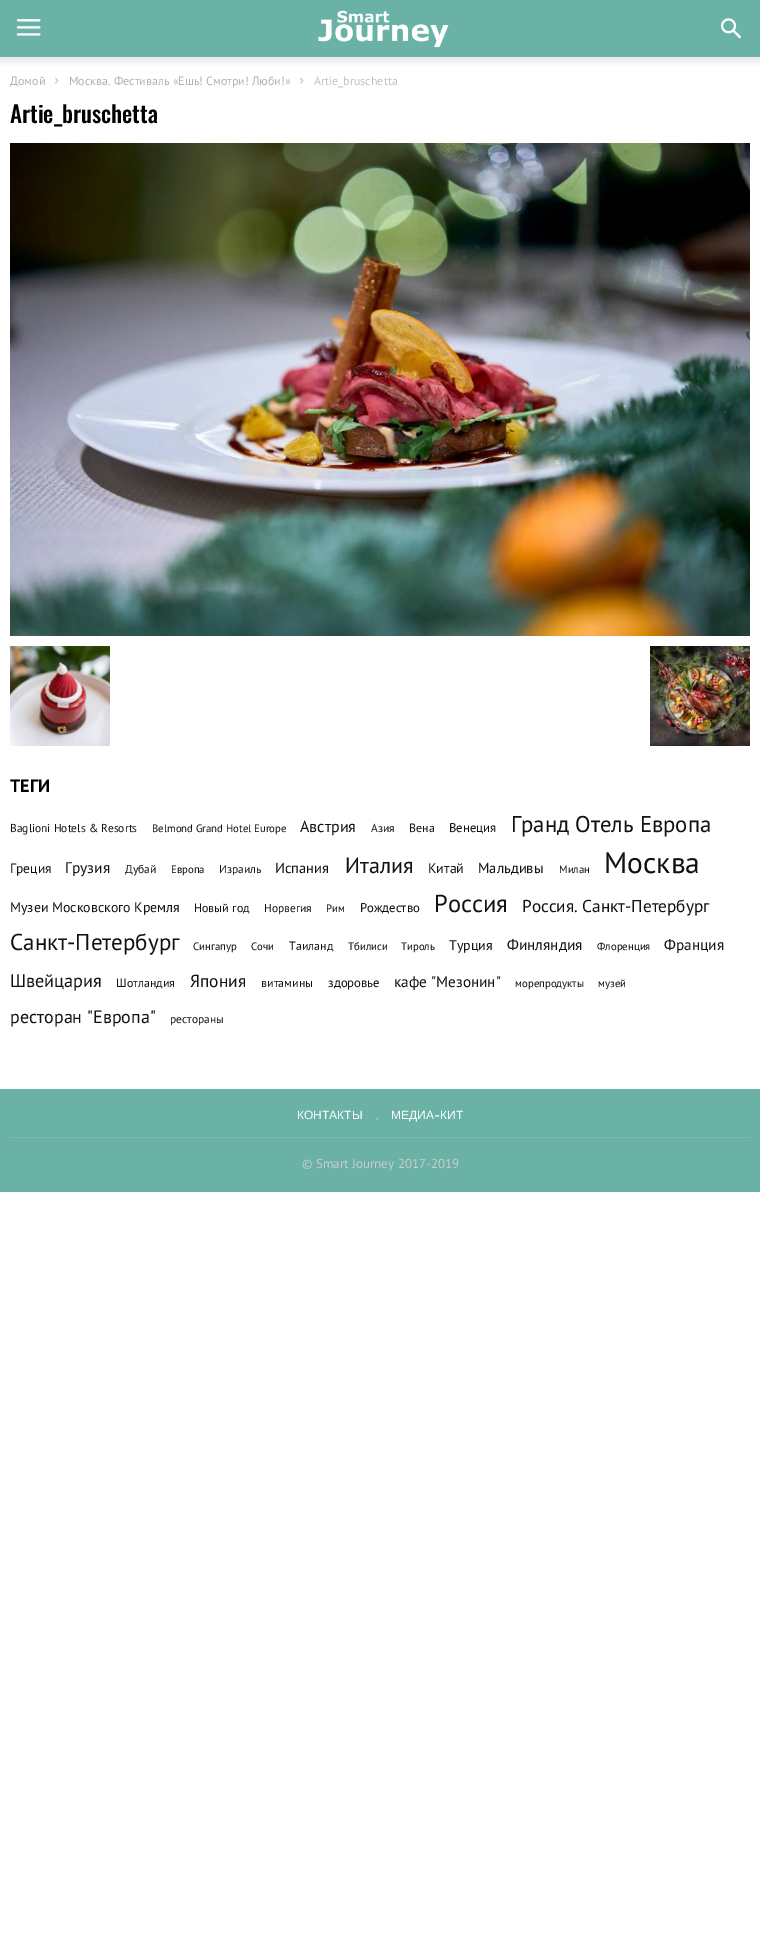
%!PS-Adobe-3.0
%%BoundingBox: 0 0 760 1944
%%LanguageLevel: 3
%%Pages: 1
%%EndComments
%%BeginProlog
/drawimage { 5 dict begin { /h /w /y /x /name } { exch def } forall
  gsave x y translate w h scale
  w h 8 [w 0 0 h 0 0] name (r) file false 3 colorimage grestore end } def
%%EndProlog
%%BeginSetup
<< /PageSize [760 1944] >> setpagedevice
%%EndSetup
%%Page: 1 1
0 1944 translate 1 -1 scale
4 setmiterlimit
1 setgray
0 0 760 1944 rectfill
0.412 0.698 0.647 setrgbcolor
0 0 760 57 rectfill
(images/1.raw) 16 19 25 17 drawimage
(images/2.raw) 318 10 131 38 drawimage
(images/3.raw) 721 18 20 21 drawimage
(images/4.raw) 0 57 760 9 drawimage
(images/5.raw) 55 77 4 7 drawimage
(images/5.raw) 300 77 4 7 drawimage
(images/6.raw) 10 143 740 493 drawimage
(images/7.raw) 10 646 100 100 drawimage
(images/8.raw) 650 646 100 100 drawimage
0 1089 760 103 rectfill
0.565 0.776 0.737 setrgbcolor
376 1118 2 2 rectfill
0.478 0.729 0.686 setrgbcolor
10 1137 740 1 rectfill
/PTSans-Regular [12 0 0 -12 0 0] selectfont
0.698 setgray
10 85 moveto (Домой) show
69 85 moveto (Москва. Фестиваль «Ешь! Смотри! Люби!») show
0.765 setgray
314 85 moveto (Artie_bruschetta) show
/Oswald-Medium [23 0 0 -23 0 0] selectfont
0 setgray
10 123 moveto (Artie_bruschetta) show
/PTSans-Bold [18 0 0 -18 0 0] selectfont
10 792 moveto (ТЕГИ) show
/PTSans-Regular [11.5 0 0 -11.5 0 0] selectfont
0.067 setgray
10 832 moveto (Baglioni Hotels & Resorts) show
/PTSans-Regular [10.75 0 0 -10.75 0 0] selectfont
152 832 moveto (Belmond Grand Hotel Europe) show
/PTSans-Regular [16 0 0 -16 0 0] selectfont
300 832 moveto (Австрия) show
/PTSans-Regular [11.5 0 0 -11.5 0 0] selectfont
371 832 moveto (Азия) show
/PTSans-Regular [12 0 0 -12 0 0] selectfont
409 832 moveto (Вена) show
/PTSans-Regular [12.75 0 0 -12.75 0 0] selectfont
449 832 moveto (Венеция) show
/PTSans-Regular [22.75 0 0 -22.75 0 0] selectfont
511 832 moveto (Гранд Отель Европа) show
/PTSans-Regular [13.5 0 0 -13.5 0 0] selectfont
10 873 moveto (Греция) show
/PTSans-Regular [15.5 0 0 -15.5 0 0] selectfont
65 873 moveto (Грузия) show
/PTSans-Regular [11.5 0 0 -11.5 0 0] selectfont
125 873 moveto (Дубай) show
/PTSans-Regular [10.75 0 0 -10.75 0 0] selectfont
171 873 moveto (Европа) show
/PTSans-Regular [11.5 0 0 -11.5 0 0] selectfont
219 873 moveto (Израиль) show
/PTSans-Regular [14.5 0 0 -14.5 0 0] selectfont
275 873 moveto (Испания) show
/PTSans-Regular [22 0 0 -22 0 0] selectfont
345 873 moveto (Италия) show
/PTSans-Regular [13.9 0 0 -13.9 0 0] selectfont
428 873 moveto (Китай) show
/PTSans-Regular [14.5 0 0 -14.5 0 0] selectfont
478 873 moveto (Мальдивы) show
/PTSans-Regular [10.75 0 0 -10.75 0 0] selectfont
559 873 moveto (Милан) show
/PTSans-Regular [29.5 0 0 -29.5 0 0] selectfont
604 873 moveto (Москва) show
/PTSans-Regular [13.9 0 0 -13.9 0 0] selectfont
10 912 moveto (Музеи Московского Кремля) show
/PTSans-Regular [12 0 0 -12 0 0] selectfont
194 912 moveto (Новый год) show
/PTSans-Regular [11.5 0 0 -11.5 0 0] selectfont
264 912 moveto (Норвегия) show
/PTSans-Regular [10.75 0 0 -10.75 0 0] selectfont
326 912 moveto (Рим) show
/PTSans-Regular [12.75 0 0 -12.75 0 0] selectfont
360 912 moveto (Рождество) show
/PTSans-Regular [24.5 0 0 -24.5 0 0] selectfont
434 912 moveto (Россия) show
/PTSans-Regular [17.25 0 0 -17.25 0 0] selectfont
522 912 moveto (Россия. Санкт-Петербург) show
/PTSans-Regular [23 0 0 -23 0 0] selectfont
10 950 moveto (Санкт-Петербург) show
/PTSans-Regular [10.75 0 0 -10.75 0 0] selectfont
193 950 moveto (Сингапур) show
251 950 moveto (Сочи) show
/PTSans-Regular [12 0 0 -12 0 0] selectfont
289 950 moveto (Таиланд) show
/PTSans-Regular [10.75 0 0 -10.75 0 0] selectfont
348 950 moveto (Тбилиси) show
401 950 moveto (Тироль) show
/PTSans-Regular [13.9 0 0 -13.9 0 0] selectfont
449 950 moveto (Турция) show
/PTSans-Regular [15.25 0 0 -15.25 0 0] selectfont
507 950 moveto (Финляндия) show
/PTSans-Regular [10.75 0 0 -10.75 0 0] selectfont
597 950 moveto (Флоренция) show
/PTSans-Regular [15.25 0 0 -15.25 0 0] selectfont
664 950 moveto (Франция) show
/PTSans-Regular [18.25 0 0 -18.25 0 0] selectfont
10 987 moveto (Швейцария) show
/PTSans-Regular [12 0 0 -12 0 0] selectfont
116 987 moveto (Шотландия) show
/PTSans-Regular [17.5 0 0 -17.5 0 0] selectfont
190 987 moveto (Япония) show
/PTSans-Regular [12 0 0 -12 0 0] selectfont
261 987 moveto (витамины) show
/PTSans-Regular [12.75 0 0 -12.75 0 0] selectfont
328 987 moveto (здоровье) show
/PTSans-Regular [15.25 0 0 -15.25 0 0] selectfont
394 987 moveto (кафе "Мезонин") show
/PTSans-Regular [10.75 0 0 -10.75 0 0] selectfont
515 987 moveto (морепродукты) show
598 987 moveto (музей) show
/PTSans-Regular [18 0 0 -18 0 0] selectfont
10 1023 moveto (ресторан "Европа") show
/PTSans-Regular [11.5 0 0 -11.5 0 0] selectfont
170 1023 moveto (рестораны) show
/LiberationSans-Regular [12 0 0 -12 0 0] selectfont
1 setgray
297 1119 moveto (КОНТАКТЫ) show
391 1119 moveto (МЕДИА) show
/WorkSans-Medium [12 0 0 -12 0 0] selectfont
434 1119 moveto (-) show
/LiberationSans-Regular [12 0 0 -12 0 0] selectfont
440 1119 moveto (КИТ) show
/PTSans-Regular [13 0 0 -13 0 0] selectfont
0.8 setgray
302 1168 moveto (© Smart Journey 2017-2019) show
showpage
%%EOF
